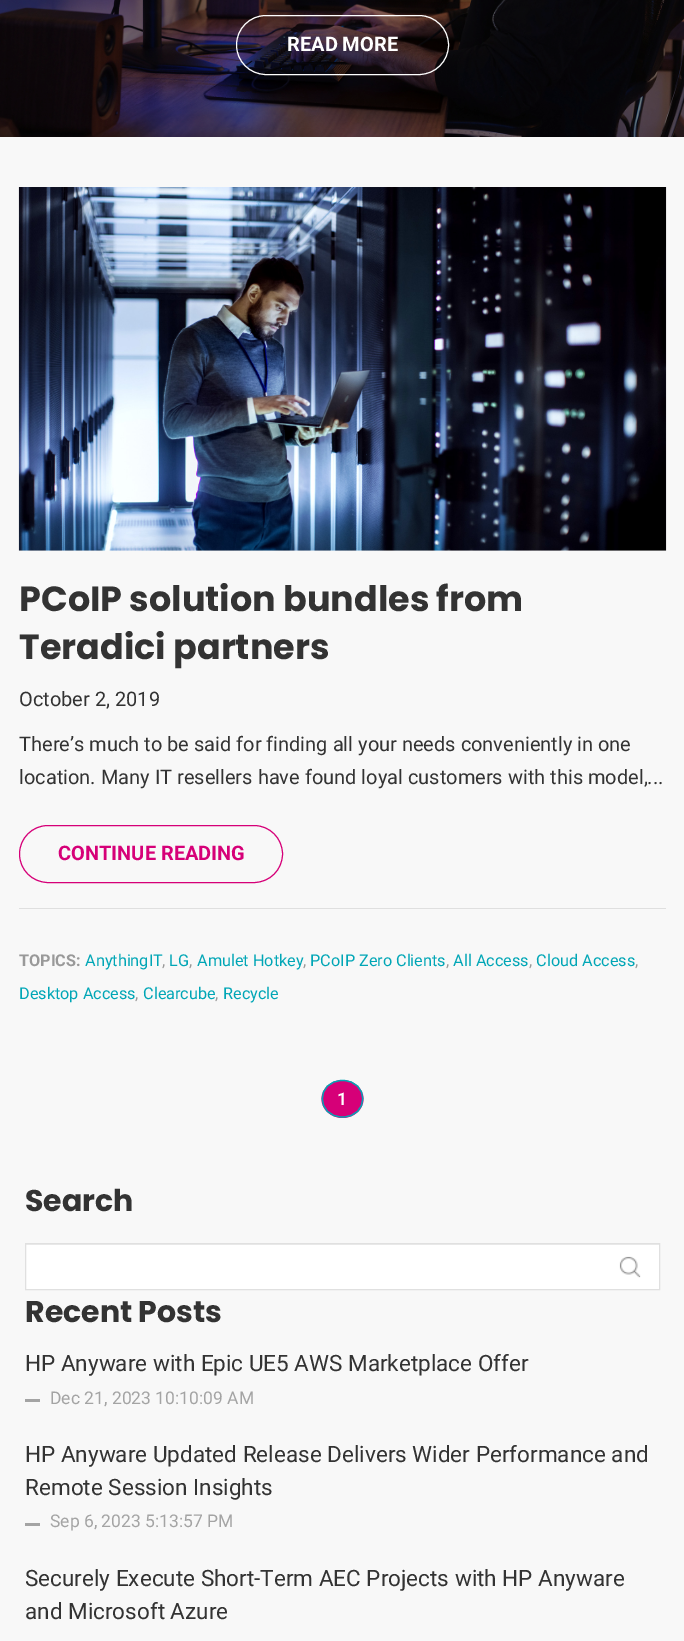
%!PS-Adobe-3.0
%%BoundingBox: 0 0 684 1641
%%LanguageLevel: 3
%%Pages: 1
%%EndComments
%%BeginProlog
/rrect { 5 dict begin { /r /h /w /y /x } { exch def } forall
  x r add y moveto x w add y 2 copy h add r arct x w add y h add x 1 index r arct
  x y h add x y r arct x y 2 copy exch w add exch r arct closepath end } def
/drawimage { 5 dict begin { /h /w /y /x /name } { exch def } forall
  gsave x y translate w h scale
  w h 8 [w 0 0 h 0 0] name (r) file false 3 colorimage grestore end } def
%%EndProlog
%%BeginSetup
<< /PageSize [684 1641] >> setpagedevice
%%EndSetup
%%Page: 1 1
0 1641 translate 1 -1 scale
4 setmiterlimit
0.973 setgray
0 0 684 1641 rectfill
(images/1.raw) 0 0 684 137 drawimage
1 setgray
236.5 15.5 212 59 29.5 rrect stroke
(images/2.raw) 18 187 649 364 drawimage
0.839 0 0.471 setrgbcolor
19.5 825.5 263 57 28.5 rrect stroke
0.875 setgray
19 908 647 1 rectfill
0.839 0 0.471 setrgbcolor
newpath 342.5 1080 moveto 354 1080 363.5 1088.5 363.5 1099 curveto 363.5 1109.5 354 1118 342.5 1118 curveto 331 1118 321.5 1109.5 321.5 1099 curveto 321.5 1088.5 331 1080 342.5 1080 curveto closepath fill
0 0.651 0.714 setrgbcolor
1.2 setlinewidth
newpath 342.5 1080.5 moveto 369.5 1080.5 369.5 1117 342.5 1117 curveto 315.5 1117 315.5 1080.5 342.5 1080.5 curveto closepath stroke
1 setgray
26 1245 633 44 rectfill
0.925 setgray
26 1244 633 1 rectfill
0.878 setgray
1 setlinewidth
25.5 1243.5 634 46 rectstroke
(images/3.raw) 619 1256 22 22 drawimage
0.643 setgray
25 1399 15 3 rectfill
25 1523 15 3 rectfill
/Roboto-Bold [20 0 0 -20 0 0] selectfont
1 setgray
287 51 moveto (READ MORE) show
/Poppins-Bold [35 0 0 -35 0 0] selectfont
0.2 setgray
19 611 moveto (PCoIP solution bundles from) show
19 659 moveto (Teradici partners) show
/Roboto-Regular [20 0 0 -20 0 0] selectfont
19 706 moveto (October 2, 2019) show
19 751 moveto (There’s much to be said for finding all your needs conveniently in one) show
19 784 moveto (location. Many IT resellers have found loyal customers with this model,...) show
/Roboto-Bold [20 0 0 -20 0 0] selectfont
0.839 0 0.471 setrgbcolor
58 860 moveto (CONTINUE READING) show
/Roboto-Bold [16.25 0 0 -16.25 0 0] selectfont
0.6 setgray
19 966 moveto (TOPICS:) show
/Roboto-Regular [16.25 0 0 -16.25 0 0] selectfont
0 0.651 0.714 setrgbcolor
85 966 moveto (AnythingIT) show
0.6 setgray
162 966 moveto (,) show
0 0.651 0.714 setrgbcolor
169 966 moveto (LG) show
0.6 setgray
189 966 moveto (,) show
0 0.651 0.714 setrgbcolor
197 966 moveto (Amulet Hotkey) show
0.6 setgray
303 966 moveto (,) show
0 0.651 0.714 setrgbcolor
310 966 moveto (PCoIP Zero Clients) show
0.6 setgray
446 966 moveto (,) show
0 0.651 0.714 setrgbcolor
453 966 moveto (All Access) show
0.6 setgray
529 966 moveto (,) show
0 0.651 0.714 setrgbcolor
536 966 moveto (Cloud Access) show
0.6 setgray
635 966 moveto (,) show
0 0.651 0.714 setrgbcolor
19 999 moveto (Desktop Access) show
0.6 setgray
135 999 moveto (,) show
0 0.651 0.714 setrgbcolor
143 999 moveto (Clearcube) show
0.6 setgray
215 999 moveto (,) show
0 0.651 0.714 setrgbcolor
223 999 moveto (Recycle) show
/Roboto-Bold [17.5 0 0 -17.5 0 0] selectfont
1 setgray
337 1105 moveto (1) show
/Poppins-Bold [30 0 0 -30 0 0] selectfont
0.2 setgray
25 1211 moveto (Search) show
25 1322 moveto (Recent Posts) show
/Roboto-Regular [22.5 0 0 -22.5 0 0] selectfont
25 1371 moveto (HP Anyware with Epic UE5 AWS Marketplace Offer) show
/Roboto-Regular [17.5 0 0 -17.5 0 0] selectfont
0.643 setgray
50 1404 moveto (Dec 21, 2023 10:10:09 AM) show
/Roboto-Regular [22.5 0 0 -22.5 0 0] selectfont
0.2 setgray
25 1462 moveto (HP Anyware Updated Release Delivers Wider Performance and) show
25 1495 moveto (Remote Session Insights) show
/Roboto-Regular [17.5 0 0 -17.5 0 0] selectfont
0.643 setgray
50 1527 moveto (Sep 6, 2023 5:13:57 PM) show
/Roboto-Regular [22.5 0 0 -22.5 0 0] selectfont
0.2 setgray
25 1586 moveto (Securely Execute Short-Term AEC Projects with HP Anyware) show
25 1619 moveto (and Microsoft Azure) show
showpage
%%EOF
